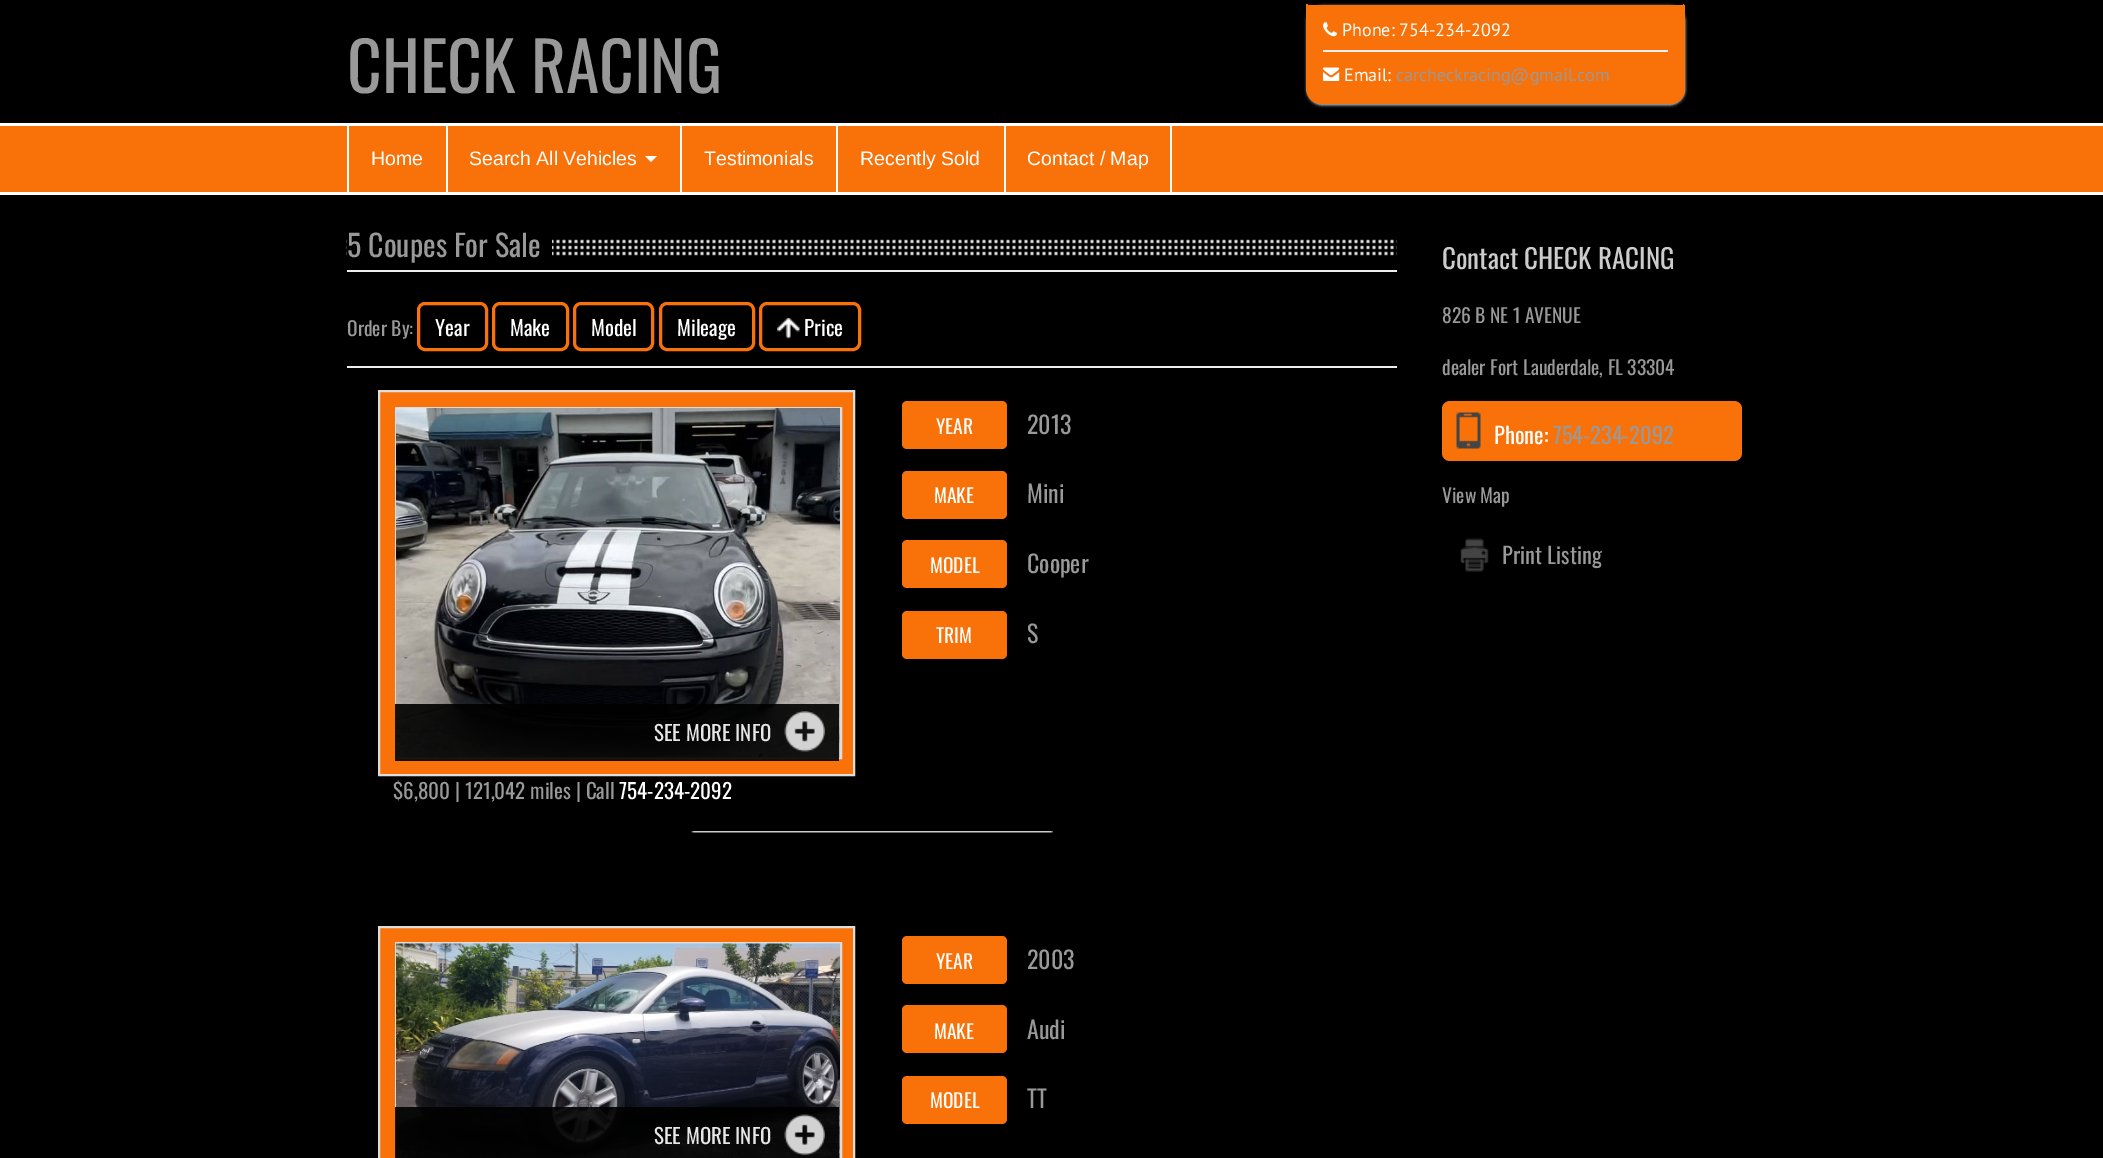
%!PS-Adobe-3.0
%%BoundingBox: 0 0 2103 1158
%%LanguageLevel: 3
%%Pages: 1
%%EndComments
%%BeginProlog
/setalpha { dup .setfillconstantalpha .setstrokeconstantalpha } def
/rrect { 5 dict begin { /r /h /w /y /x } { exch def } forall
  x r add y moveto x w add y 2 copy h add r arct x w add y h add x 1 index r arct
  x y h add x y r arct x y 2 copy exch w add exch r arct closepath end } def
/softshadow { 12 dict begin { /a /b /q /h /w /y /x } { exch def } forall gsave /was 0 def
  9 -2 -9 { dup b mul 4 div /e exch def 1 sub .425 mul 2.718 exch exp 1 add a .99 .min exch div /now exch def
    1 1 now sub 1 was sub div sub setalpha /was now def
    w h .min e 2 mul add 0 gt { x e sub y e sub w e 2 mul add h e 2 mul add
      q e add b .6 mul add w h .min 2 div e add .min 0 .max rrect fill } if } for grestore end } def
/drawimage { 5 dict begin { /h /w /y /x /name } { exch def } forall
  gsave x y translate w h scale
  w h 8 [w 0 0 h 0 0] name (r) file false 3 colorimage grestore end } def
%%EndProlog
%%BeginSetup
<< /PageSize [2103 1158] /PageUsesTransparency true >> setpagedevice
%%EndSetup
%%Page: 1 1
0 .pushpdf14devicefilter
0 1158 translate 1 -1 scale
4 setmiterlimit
0 setgray
0 0 2103 1158 rectfill
0.867 setgray
1307 6 378 99 15 1.5 1 softshadow
0.976 0.443 0.035 setrgbcolor
newpath 1307 5 moveto 1685 5 lineto 1685 89 lineto 1685 97.5 1678.5 104 1670 104 curveto 1322 104 lineto 1313.5 104 1307 97.5 1307 89 curveto closepath fill
newpath 1306 4 moveto 1684 4 lineto 1684 88 lineto 1684 97 1678 104 1670 104 curveto 1322 104 lineto 1313 104 1306 97 1306 88 curveto closepath 1308 4 moveto 1683 4 lineto 1683 88 lineto 1683 96 1677 102 1670 102 curveto 1322 102 lineto 1314 102 1308 96 1308 88 curveto closepath eofill
(images/1.raw) 1323 22 14 15 drawimage
0.933 setgray
1323 50 345 2 rectfill
(images/2.raw) 1323 67 17 14 drawimage
0.976 0.443 0.035 setrgbcolor
0 126 2103 66 rectfill
1 setgray
0 123 2103 3 rectfill
0 192 2103 3 rectfill
1170 126 2 66 rectfill
347 126 2 66 rectfill
446 126 2 66 rectfill
newpath 645 156 moveto 657 156 lineto 651 162 lineto closepath fill
680 126 2 66 rectfill
836 126 2 66 rectfill
1004 126 2 66 rectfill
0.933 setgray
347 270 1050 2 rectfill
(images/3.raw) 346 239 1051 17 drawimage
0 setgray
347 239 205 17 rectfill
0.976 0.443 0.035 setrgbcolor
3 setlinewidth
418.5 303.5 68 46 6.5 rrect stroke
493.5 303.5 74 46 6.5 rrect stroke
574.5 303.5 78 46 6.5 rrect stroke
660.5 303.5 93 46 6.5 rrect stroke
760.5 303.5 99 46 6.5 rrect stroke
(images/4.raw) 777 318 23 22 drawimage
0.933 setgray
347 366 1050 2 rectfill
0.976 0.443 0.035 setrgbcolor
902 401 105 48 5 rrect fill
902 471 105 48 5 rrect fill
902 540 105 48 5 rrect fill
902 611 105 48 5 rrect fill
newpath 379 391 moveto 854 391 lineto 854 775 lineto 379 775 lineto closepath gsave fill grestore
0.867 setgray
2 setlinewidth
stroke
396 408 445 350 rectstroke
(images/5.raw) 396 408 444 350 drawimage
0.9 setalpha
0 setgray
395 704 444 57 rectfill
1 setalpha
(images/6.raw) 784 711 41 41 drawimage
(images/7.raw) 691 831 362 2 drawimage
0.976 0.443 0.035 setrgbcolor
902 936 105 48 5 rrect fill
902 1005 105 48 5 rrect fill
902 1076 105 48 5 rrect fill
newpath 379 927 moveto 854 927 lineto 854 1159 lineto 379 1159 lineto closepath gsave fill grestore
0.867 setgray
stroke
396 943 445 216 rectstroke
(images/8.raw) 396 943 444 215 drawimage
0.9 setalpha
0 setgray
395 1107 444 51 rectfill
1 setalpha
(images/9.raw) 784 1114 41 41 drawimage
0.976 0.443 0.035 setrgbcolor
1442 401 300 60 8 rrect fill
(images/10.raw) 1456 412 25 37 drawimage
(images/11.raw) 1460 538 29 34 drawimage
/Oswald-Regular [67.5 0 0 -67.5 0 0] selectfont
0.6 setgray
347 93 moveto (CHECK RACING) show
/PTSans-Regular [18 0 0 -18 0 0] selectfont
1 setgray
1342 36 moveto (Phone: 754-234-2092) show
1344 81 moveto (Email:) show
0.6 setgray
1396 81 moveto (carcheckracing@gmail.com) show
/LiberationSans-Regular [19.5 0 0 -19.5 0 0] selectfont
1 setgray
371 165 moveto (Home) show
469 165 moveto (Search All Vehicles) show
704 165 moveto (Testimonials) show
860 165 moveto (Recently Sold) show
1027 165 moveto (Contact / Map) show
/Oswald-Regular [30 0 0 -30 0 0] selectfont
0.6 setgray
347 257 moveto (5 Coupes For Sale) show
/Oswald-Regular [19.5 0 0 -19.5 0 0] selectfont
347 336 moveto (Order By:) show
/Oswald-Regular [21 0 0 -21 0 0] selectfont
1 setgray
435 336 moveto (Year) show
510 336 moveto (Make) show
591 336 moveto (Model) show
677 336 moveto (Mileage) show
804 336 moveto (Price) show
/Oswald-Regular [19.5 0 0 -19.5 0 0] selectfont
936 434 moveto (YEAR) show
/Oswald-Regular [24 0 0 -24 0 0] selectfont
0.6 setgray
1027 434 moveto (2013) show
/Oswald-Regular [19.5 0 0 -19.5 0 0] selectfont
1 setgray
934 503 moveto (MAKE) show
/Oswald-Regular [24 0 0 -24 0 0] selectfont
0.6 setgray
1027 503 moveto (Mini) show
/Oswald-Regular [19.5 0 0 -19.5 0 0] selectfont
1 setgray
930 573 moveto (MODEL) show
/Oswald-Regular [24 0 0 -24 0 0] selectfont
0.6 setgray
1027 573 moveto (Cooper) show
/Oswald-Regular [19.5 0 0 -19.5 0 0] selectfont
1 setgray
936 643 moveto (TRIM) show
/Oswald-Regular [24 0 0 -24 0 0] selectfont
0.6 setgray
1027 643 moveto (S) show
/Oswald-Regular [21 0 0 -21 0 0] selectfont
0.902 setgray
654 741 moveto (SEE MORE INFO) show
0.6 setgray
393 799 moveto ($6,800 | 121,042 miles | Call) show
1 setgray
619 799 moveto (754-234-2092) show
/Oswald-Regular [19.5 0 0 -19.5 0 0] selectfont
936 969 moveto (YEAR) show
/Oswald-Regular [24 0 0 -24 0 0] selectfont
0.6 setgray
1027 969 moveto (2003) show
/Oswald-Regular [19.5 0 0 -19.5 0 0] selectfont
1 setgray
934 1039 moveto (MAKE) show
/Oswald-Regular [24 0 0 -24 0 0] selectfont
0.6 setgray
1027 1039 moveto (Audi) show
/Oswald-Regular [19.5 0 0 -19.5 0 0] selectfont
1 setgray
930 1108 moveto (MODEL) show
/Oswald-Regular [24 0 0 -24 0 0] selectfont
0.6 setgray
1027 1108 moveto (TT) show
/Oswald-Regular [21 0 0 -21 0 0] selectfont
0.902 setgray
654 1144 moveto (SEE MORE INFO) show
/Oswald-Regular [27 0 0 -27 0 0] selectfont
0.8 setgray
1442 269 moveto (Contact CHECK RACING) show
/Oswald-Regular [19.5 0 0 -19.5 0 0] selectfont
0.6 setgray
1442 323 moveto (826 B NE 1 AVENUE) show
1442 375 moveto (dealer Fort Lauderdale, FL 33304) show
/Oswald-Regular [22.5 0 0 -22.5 0 0] selectfont
1 setgray
1494 444 moveto (Phone:) show
0.6 setgray
1553 444 moveto (754-234-2092) show
/Oswald-Regular [19.5 0 0 -19.5 0 0] selectfont
1442 503 moveto (View Map) show
/Oswald-Regular [22.5 0 0 -22.5 0 0] selectfont
1502 564 moveto (Print Listing) show
.poppdf14devicefilter showpage
%%EOF
